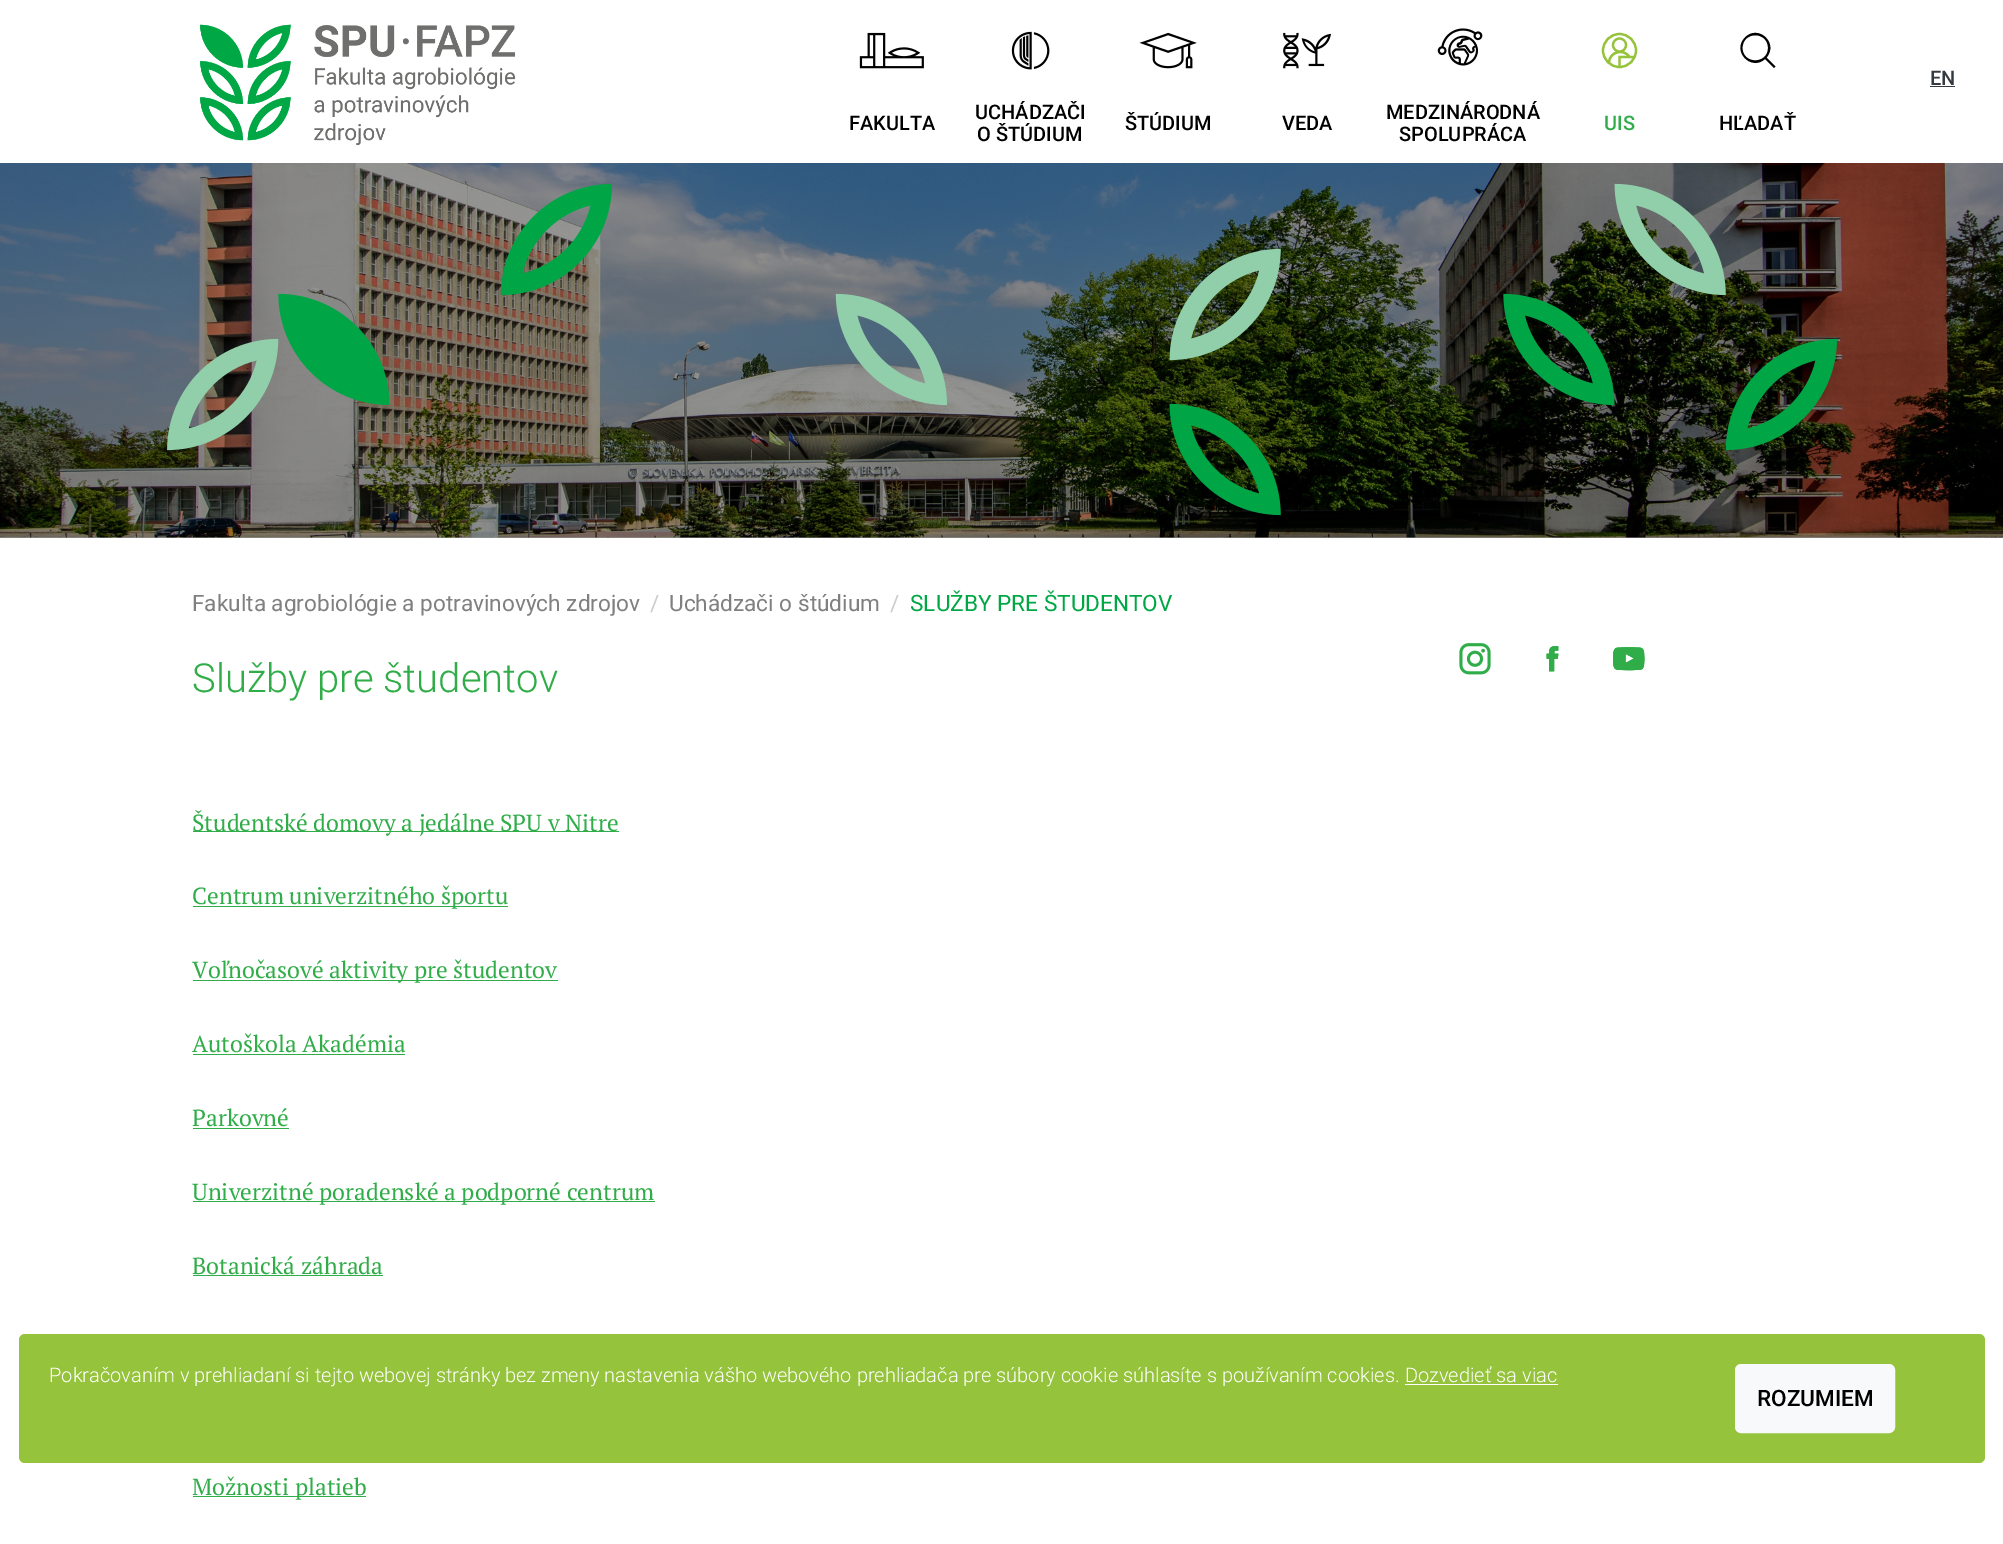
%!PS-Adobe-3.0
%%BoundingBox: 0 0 2003 1544
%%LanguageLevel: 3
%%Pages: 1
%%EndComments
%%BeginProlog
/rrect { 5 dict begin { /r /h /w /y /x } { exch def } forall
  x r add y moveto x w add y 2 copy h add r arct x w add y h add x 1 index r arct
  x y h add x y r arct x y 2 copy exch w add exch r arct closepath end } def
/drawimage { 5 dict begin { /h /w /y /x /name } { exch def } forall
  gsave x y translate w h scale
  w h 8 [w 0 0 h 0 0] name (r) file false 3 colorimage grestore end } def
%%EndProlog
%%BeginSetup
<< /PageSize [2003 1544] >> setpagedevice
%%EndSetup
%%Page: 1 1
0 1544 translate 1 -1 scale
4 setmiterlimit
1 setgray
0 0 2003 1544 rectfill
0.6 setgray
0 537 2003 1 rectfill
0.204 0.227 0.251 setrgbcolor
1930 86 25 1 rectfill
(images/1.raw) 199 24 317 122 drawimage
(images/2.raw) 859 32 65 37 drawimage
(images/3.raw) 1011 31 39 39 drawimage
(images/4.raw) 1139 32 58 37 drawimage
(images/5.raw) 1283 32 48 37 drawimage
(images/6.raw) 1437 28 46 38 drawimage
0.588 0.765 0.235 setrgbcolor
2.2 setlinewidth
newpath 1619.5 50.5 16.5 0 360 arc closepath stroke
newpath 1619.5 45 6.5 0 360 arc closepath stroke
2.3 setlinewidth
newpath 1609 63 moveto 1609 51.5 1624 48 1629.5 57 curveto 1619.5 67 moveto 1619.5 57 lineto 1635 57 lineto stroke
0 setgray
newpath 1775.5 66.5 moveto 1766.5 57.5 lineto 1779 43 1758 24 1745 37.5 curveto 1731.5 51 1751 71.5 1765 59 curveto 1774 68 lineto closepath 1742.5 48 moveto 1742.5 31 1768 31 1768 48 curveto 1768 64.5 1742.5 64.5 1742.5 48 curveto closepath fill
(images/7.raw) 0 163 2003 375 drawimage
(images/8.raw) 167 183 1670 333 drawimage
0.188 0.678 0.286 setrgbcolor
193 831 426 1 rectfill
193 906 315 1 rectfill
193 980 365 1 rectfill
193 1054 212 1 rectfill
193 1128 96 1 rectfill
193 1201 462 1 rectfill
193 1275 190 1 rectfill
193 1496 173 1 rectfill
(images/9.raw) 1459 643 32 32 drawimage
(images/10.raw) 1546 646 13 26 drawimage
(images/11.raw) 1613 647 32 24 drawimage
0.588 0.765 0.235 setrgbcolor
19 1334 1966 129 6 rrect fill
1 setgray
1405 1384 153 1 rectfill
0.973 0.976 0.98 setrgbcolor
1735.5 1364.5 159 68 5.5 rrect gsave fill grestore
1 setlinewidth
stroke
/Roboto-Medium [20 0 0 -20 0 0] selectfont
0.204 0.227 0.251 setrgbcolor
1930 85 moveto (EN) show
0 setgray
849 130 moveto (FAKULTA) show
gsave
975 101 110 44 rectclip
975 119 moveto (UCHÁDZAČI) show
grestore
977 141 moveto (O ŠTÚDIUM) show
1125 130 moveto (ŠTÚDIUM) show
1282 130 moveto (VEDA) show
gsave
1386 101 154 44 rectclip
1386 119 moveto (MEDZINÁRODNÁ) show
grestore
1399 141 moveto (SPOLUPRÁCA) show
0.188 0.678 0.286 setrgbcolor
1604 130 moveto (UIS) show
0 setgray
1719 130 moveto (HĽADAŤ) show
/Roboto-Regular [22.6 0 0 -22.6 0 0] selectfont
0.502 setgray
192 611 moveto (Fakulta agrobiológie a potravinových zdrojov) show
0.8 setgray
650 611 moveto (/) show
0.502 setgray
669 611 moveto (Uchádzači o štúdium) show
0.8 setgray
890 611 moveto (/) show
0 0.655 0.271 setrgbcolor
910 611 moveto (SLUŽBY PRE ŠTUDENTOV) show
/Roboto-Light [40 0 0 -40 0 0] selectfont
0.188 0.678 0.286 setrgbcolor
192 692 moveto (Služby pre študentov) show
/PTSerif-Regular [23.3 0 0 -23.3 0 0] selectfont
192 831 moveto (Študentské domovy a jedálne SPU v Nitre) show
192 904 moveto (Centrum univerzitného športu) show
192 978 moveto (Voľnočasové aktivity pre študentov) show
192 1052 moveto (Autoškola Akadémia) show
192 1126 moveto (Parkovné) show
192 1200 moveto (Univerzitné poradenské a podporné centrum) show
192 1274 moveto (Botanická záhrada) show
192 1495 moveto (Možnosti platieb) show
/Roboto-Light [20 0 0 -20 0 0] selectfont
1 setgray
49 1382 moveto (Pokračovaním v prehliadaní si tejto webovej stránky bez zmeny nastavenia vášho webového prehliadača pre súbory cookie súhlasíte s používaním cookies. Dozvedieť sa viac) show
/Roboto-Medium [22.6 0 0 -22.6 0 0] selectfont
0 setgray
1757 1406 moveto (ROZUMIEM) show
showpage
%%EOF
